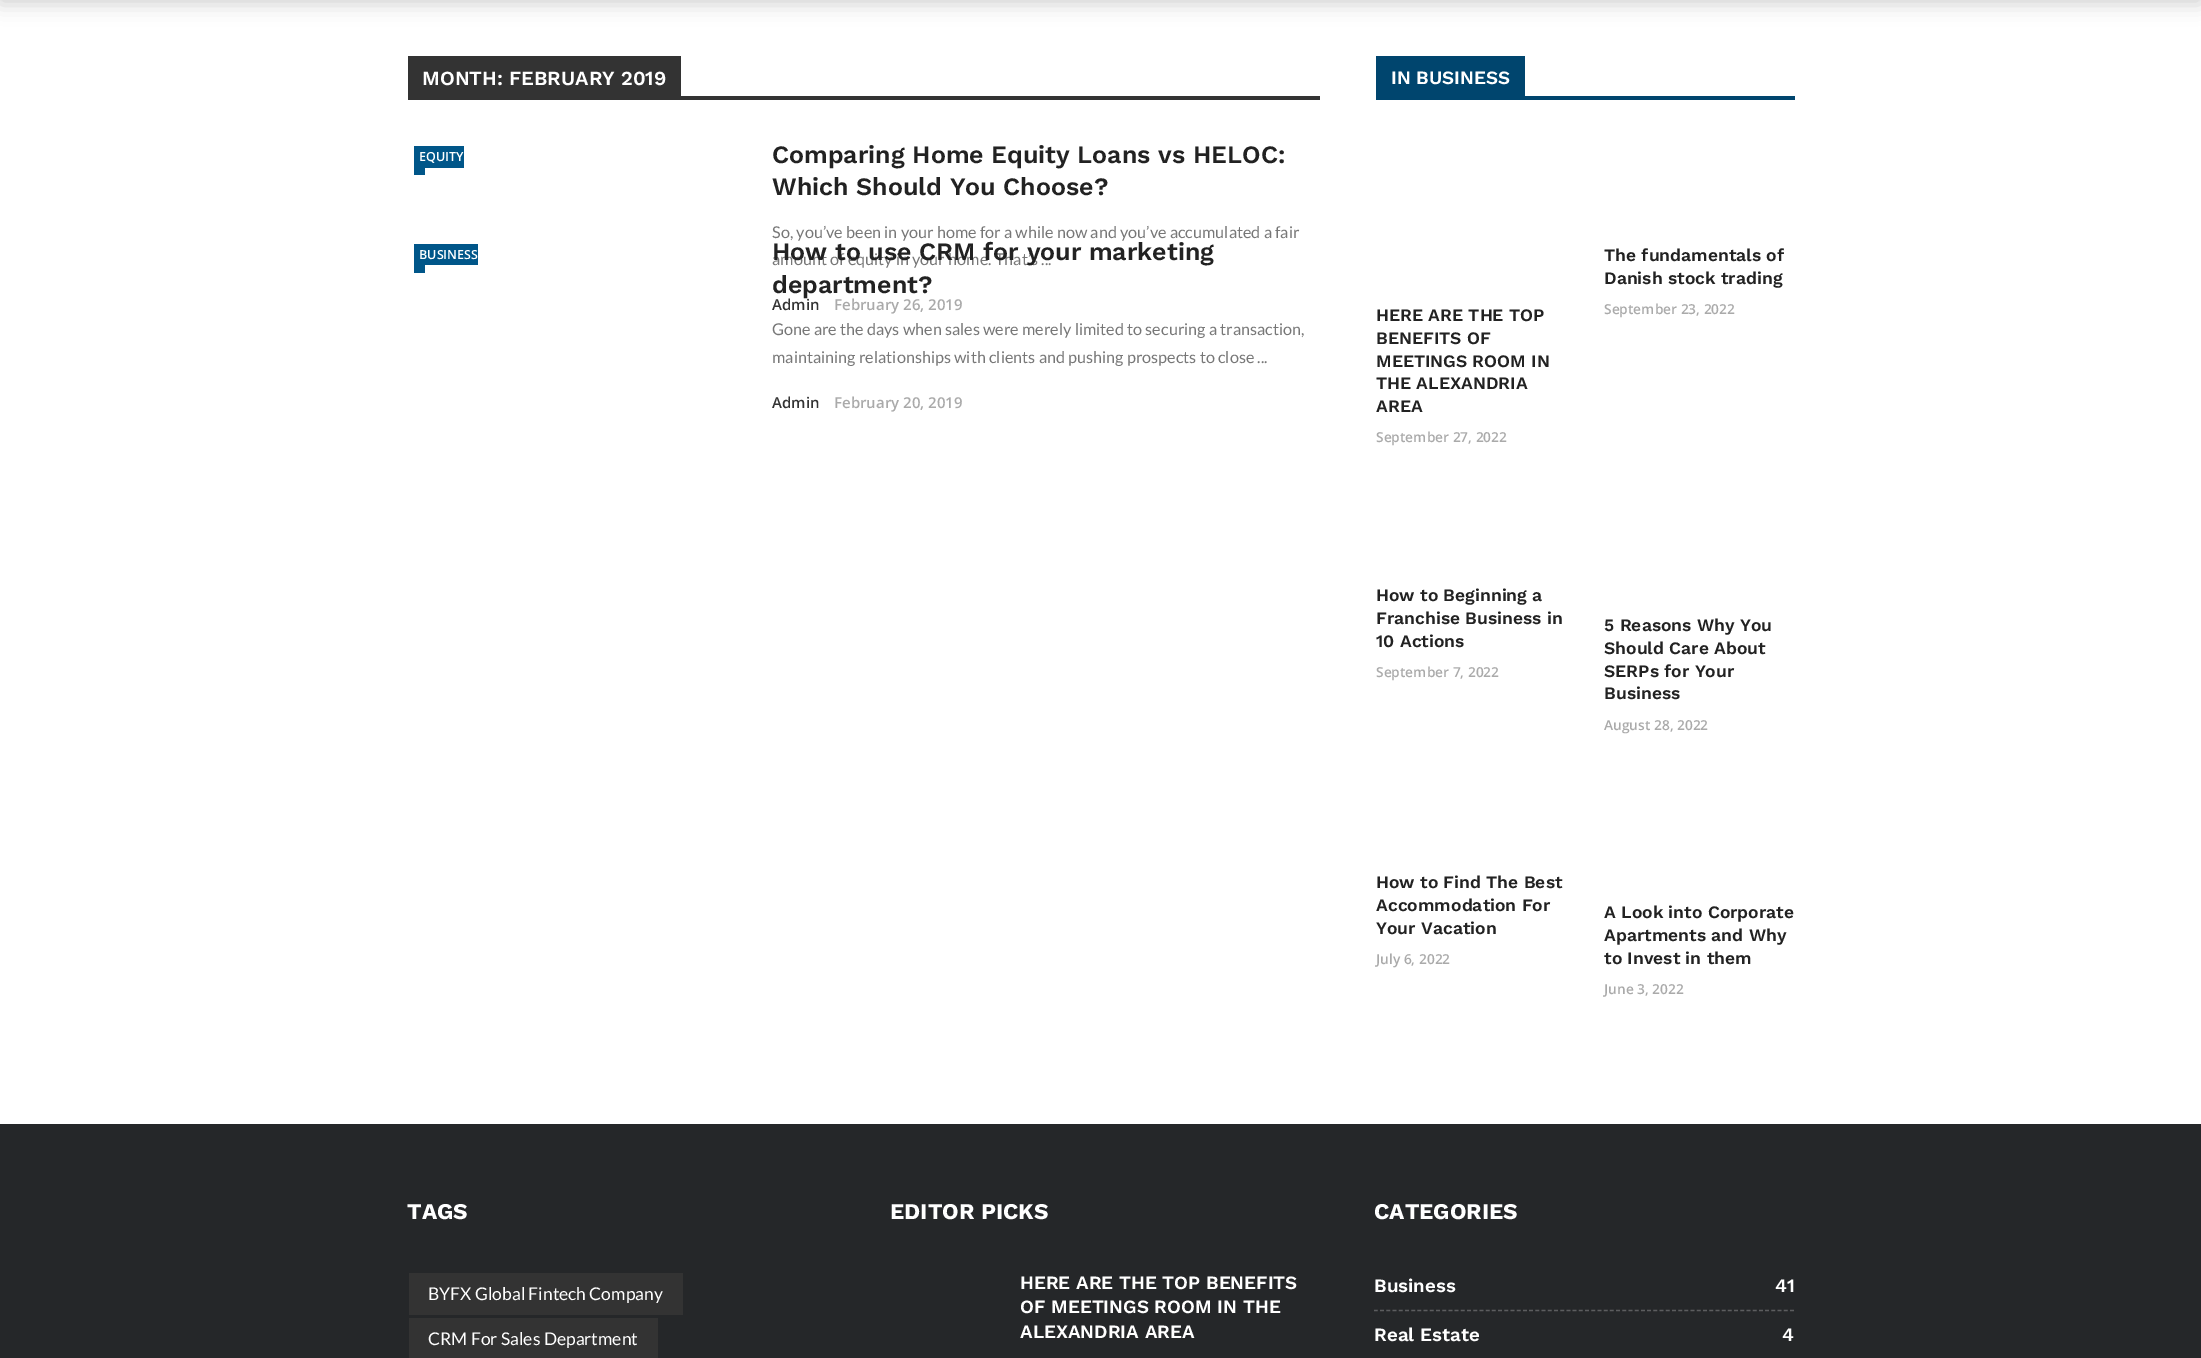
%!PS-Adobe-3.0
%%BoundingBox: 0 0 2201 1358
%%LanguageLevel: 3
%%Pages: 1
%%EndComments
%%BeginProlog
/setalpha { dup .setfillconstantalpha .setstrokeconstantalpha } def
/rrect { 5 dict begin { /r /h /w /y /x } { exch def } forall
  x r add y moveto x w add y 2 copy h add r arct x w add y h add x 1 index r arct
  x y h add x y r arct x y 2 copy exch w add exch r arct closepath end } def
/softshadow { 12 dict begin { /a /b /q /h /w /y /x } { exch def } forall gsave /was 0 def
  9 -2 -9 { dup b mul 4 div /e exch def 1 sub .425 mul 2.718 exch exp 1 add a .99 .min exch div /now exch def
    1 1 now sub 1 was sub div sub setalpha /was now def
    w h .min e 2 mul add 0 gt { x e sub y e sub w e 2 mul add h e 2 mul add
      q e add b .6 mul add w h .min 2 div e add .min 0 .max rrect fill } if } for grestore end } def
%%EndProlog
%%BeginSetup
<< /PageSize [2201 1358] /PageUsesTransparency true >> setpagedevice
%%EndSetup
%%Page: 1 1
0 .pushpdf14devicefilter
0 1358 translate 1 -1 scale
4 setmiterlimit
1 setgray
0 0 2201 1358 rectfill
0 setgray
0 -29 2201 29 0 9.5 0.1 softshadow
0 -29 2201 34 0 9.5 0.1 softshadow
0.2 setgray
408 56 273 40 rectfill
408 96 912 4 rectfill
0 0.337 0.537 setrgbcolor
414 146 50 22 rectfill
414 168 11 7 rectfill
414 244 64 21 rectfill
414 265 11 8 rectfill
0 0.271 0.431 setrgbcolor
1376 56 149 44 rectfill
1525 96 270 4 rectfill
0.145 0.153 0.161 setrgbcolor
0 1124 2201 234 rectfill
0.2 setgray
409 1273 274 42 rectfill
409 1318 249 40 rectfill
0.361 0.365 0.373 setrgbcolor
1.2 setlinewidth
[3.75 2.46] 0 setdash
newpath 1374 1310.5 moveto 1794 1310.5 lineto stroke
/WorkSans-SemiBold [20 0 0 -20 0 0] selectfont
1 setgray
422 85 moveto (MONTH: FEBRUARY 2019) show
/OpenSans-SemiBold [12.5 0 0 -12.5 0 0] selectfont
419 161 moveto (EQUITY) show
/WorkSans-SemiBold [25 0 0 -25 0 0] selectfont
0.133 setgray
772 163 moveto (Comparing Home Equity Loans vs HELOC:) show
772 195 moveto (Which Should You Choose?) show
/Lato-Regular [16.25 0 0 -16.25 0 0] selectfont
0.467 setgray
772 238 moveto (So, you’ve been in your home for a while now and you’ve accumulated a fair) show
772 265 moveto (amount of equity in your home. That’s ...) show
/OpenSans-SemiBold [15 0 0 -15 0 0] selectfont
0.2 setgray
772 310 moveto (Admin) show
0.667 setgray
834 310 moveto (February 26, 2019) show
/OpenSans-SemiBold [12.5 0 0 -12.5 0 0] selectfont
1 setgray
419 259 moveto (BUSINESS) show
/WorkSans-SemiBold [25 0 0 -25 0 0] selectfont
0.133 setgray
772 260 moveto (How to use CRM for your marketing) show
772 293 moveto (department?) show
/Lato-Regular [16.25 0 0 -16.25 0 0] selectfont
0.467 setgray
772 335 moveto (Gone are the days when sales were merely limited to securing a transaction,) show
772 363 moveto (maintaining relationships with clients and pushing prospects to close ...) show
/OpenSans-SemiBold [15 0 0 -15 0 0] selectfont
0.2 setgray
772 408 moveto (Admin) show
0.667 setgray
834 408 moveto (February 20, 2019) show
/WorkSans-SemiBold [18.75 0 0 -18.75 0 0] selectfont
1 setgray
1391 84 moveto (IN BUSINESS) show
/WorkSans-SemiBold [17.5 0 0 -17.5 0 0] selectfont
0.133 setgray
1604 261 moveto (The fundamentals of) show
1604 284 moveto (Danish stock trading) show
/OpenSans-SemiBold [13.75 0 0 -13.75 0 0] selectfont
0.667 setgray
1604 314 moveto (September 23, 2022) show
/WorkSans-SemiBold [17.5 0 0 -17.5 0 0] selectfont
0.133 setgray
1376 321 moveto (HERE ARE THE TOP) show
1376 344 moveto (BENEFITS OF) show
1376 367 moveto (MEETINGS ROOM IN) show
1376 389 moveto (THE ALEXANDRIA) show
1376 412 moveto (AREA) show
/OpenSans-SemiBold [13.75 0 0 -13.75 0 0] selectfont
0.667 setgray
1376 442 moveto (September 27, 2022) show
/WorkSans-SemiBold [17.5 0 0 -17.5 0 0] selectfont
0.133 setgray
1376 601 moveto (How to Beginning a) show
1376 624 moveto (Franchise Business in) show
1376 647 moveto (10 Actions) show
/OpenSans-SemiBold [13.75 0 0 -13.75 0 0] selectfont
0.667 setgray
1376 677 moveto (September 7, 2022) show
/WorkSans-SemiBold [17.5 0 0 -17.5 0 0] selectfont
0.133 setgray
1604 631 moveto (5 Reasons Why You) show
1604 654 moveto (Should Care About) show
1604 677 moveto (SERPs for Your) show
1604 699 moveto (Business) show
/OpenSans-SemiBold [13.75 0 0 -13.75 0 0] selectfont
0.667 setgray
1604 730 moveto (August 28, 2022) show
/WorkSans-SemiBold [17.5 0 0 -17.5 0 0] selectfont
0.133 setgray
1376 888 moveto (How to Find The Best) show
1376 911 moveto (Accommodation For) show
1376 934 moveto (Your Vacation) show
/OpenSans-SemiBold [13.75 0 0 -13.75 0 0] selectfont
0.667 setgray
1376 964 moveto (July 6, 2022) show
/WorkSans-SemiBold [17.5 0 0 -17.5 0 0] selectfont
0.133 setgray
1604 918 moveto (A Look into Corporate) show
1604 941 moveto (Apartments and Why) show
1604 964 moveto (to Invest in them) show
/OpenSans-SemiBold [13.75 0 0 -13.75 0 0] selectfont
0.667 setgray
1604 994 moveto (June 3, 2022) show
/WorkSans-Bold [22.5 0 0 -22.5 0 0] selectfont
1 setgray
407 1219 moveto (TAGS) show
/Lato-Regular [17.5 0 0 -17.5 0 0] selectfont
428 1300 moveto (BYFX Global Fintech Company) show
428 1345 moveto (CRM For Sales Department) show
/WorkSans-Bold [22.5 0 0 -22.5 0 0] selectfont
890 1219 moveto (EDITOR PICKS) show
/WorkSans-SemiBold [18.75 0 0 -18.75 0 0] selectfont
1020 1289 moveto (HERE ARE THE TOP BENEFITS) show
1020 1313 moveto (OF MEETINGS ROOM IN THE) show
1020 1338 moveto (ALEXANDRIA AREA) show
/WorkSans-Bold [22.5 0 0 -22.5 0 0] selectfont
1374 1219 moveto (CATEGORIES) show
/WorkSans-SemiBold [18.75 0 0 -18.75 0 0] selectfont
1374 1292 moveto (Business) show
1775 1292 moveto (41) show
1374 1341 moveto (Real Estate) show
1782 1341 moveto (4) show
.poppdf14devicefilter showpage
%%EOF
